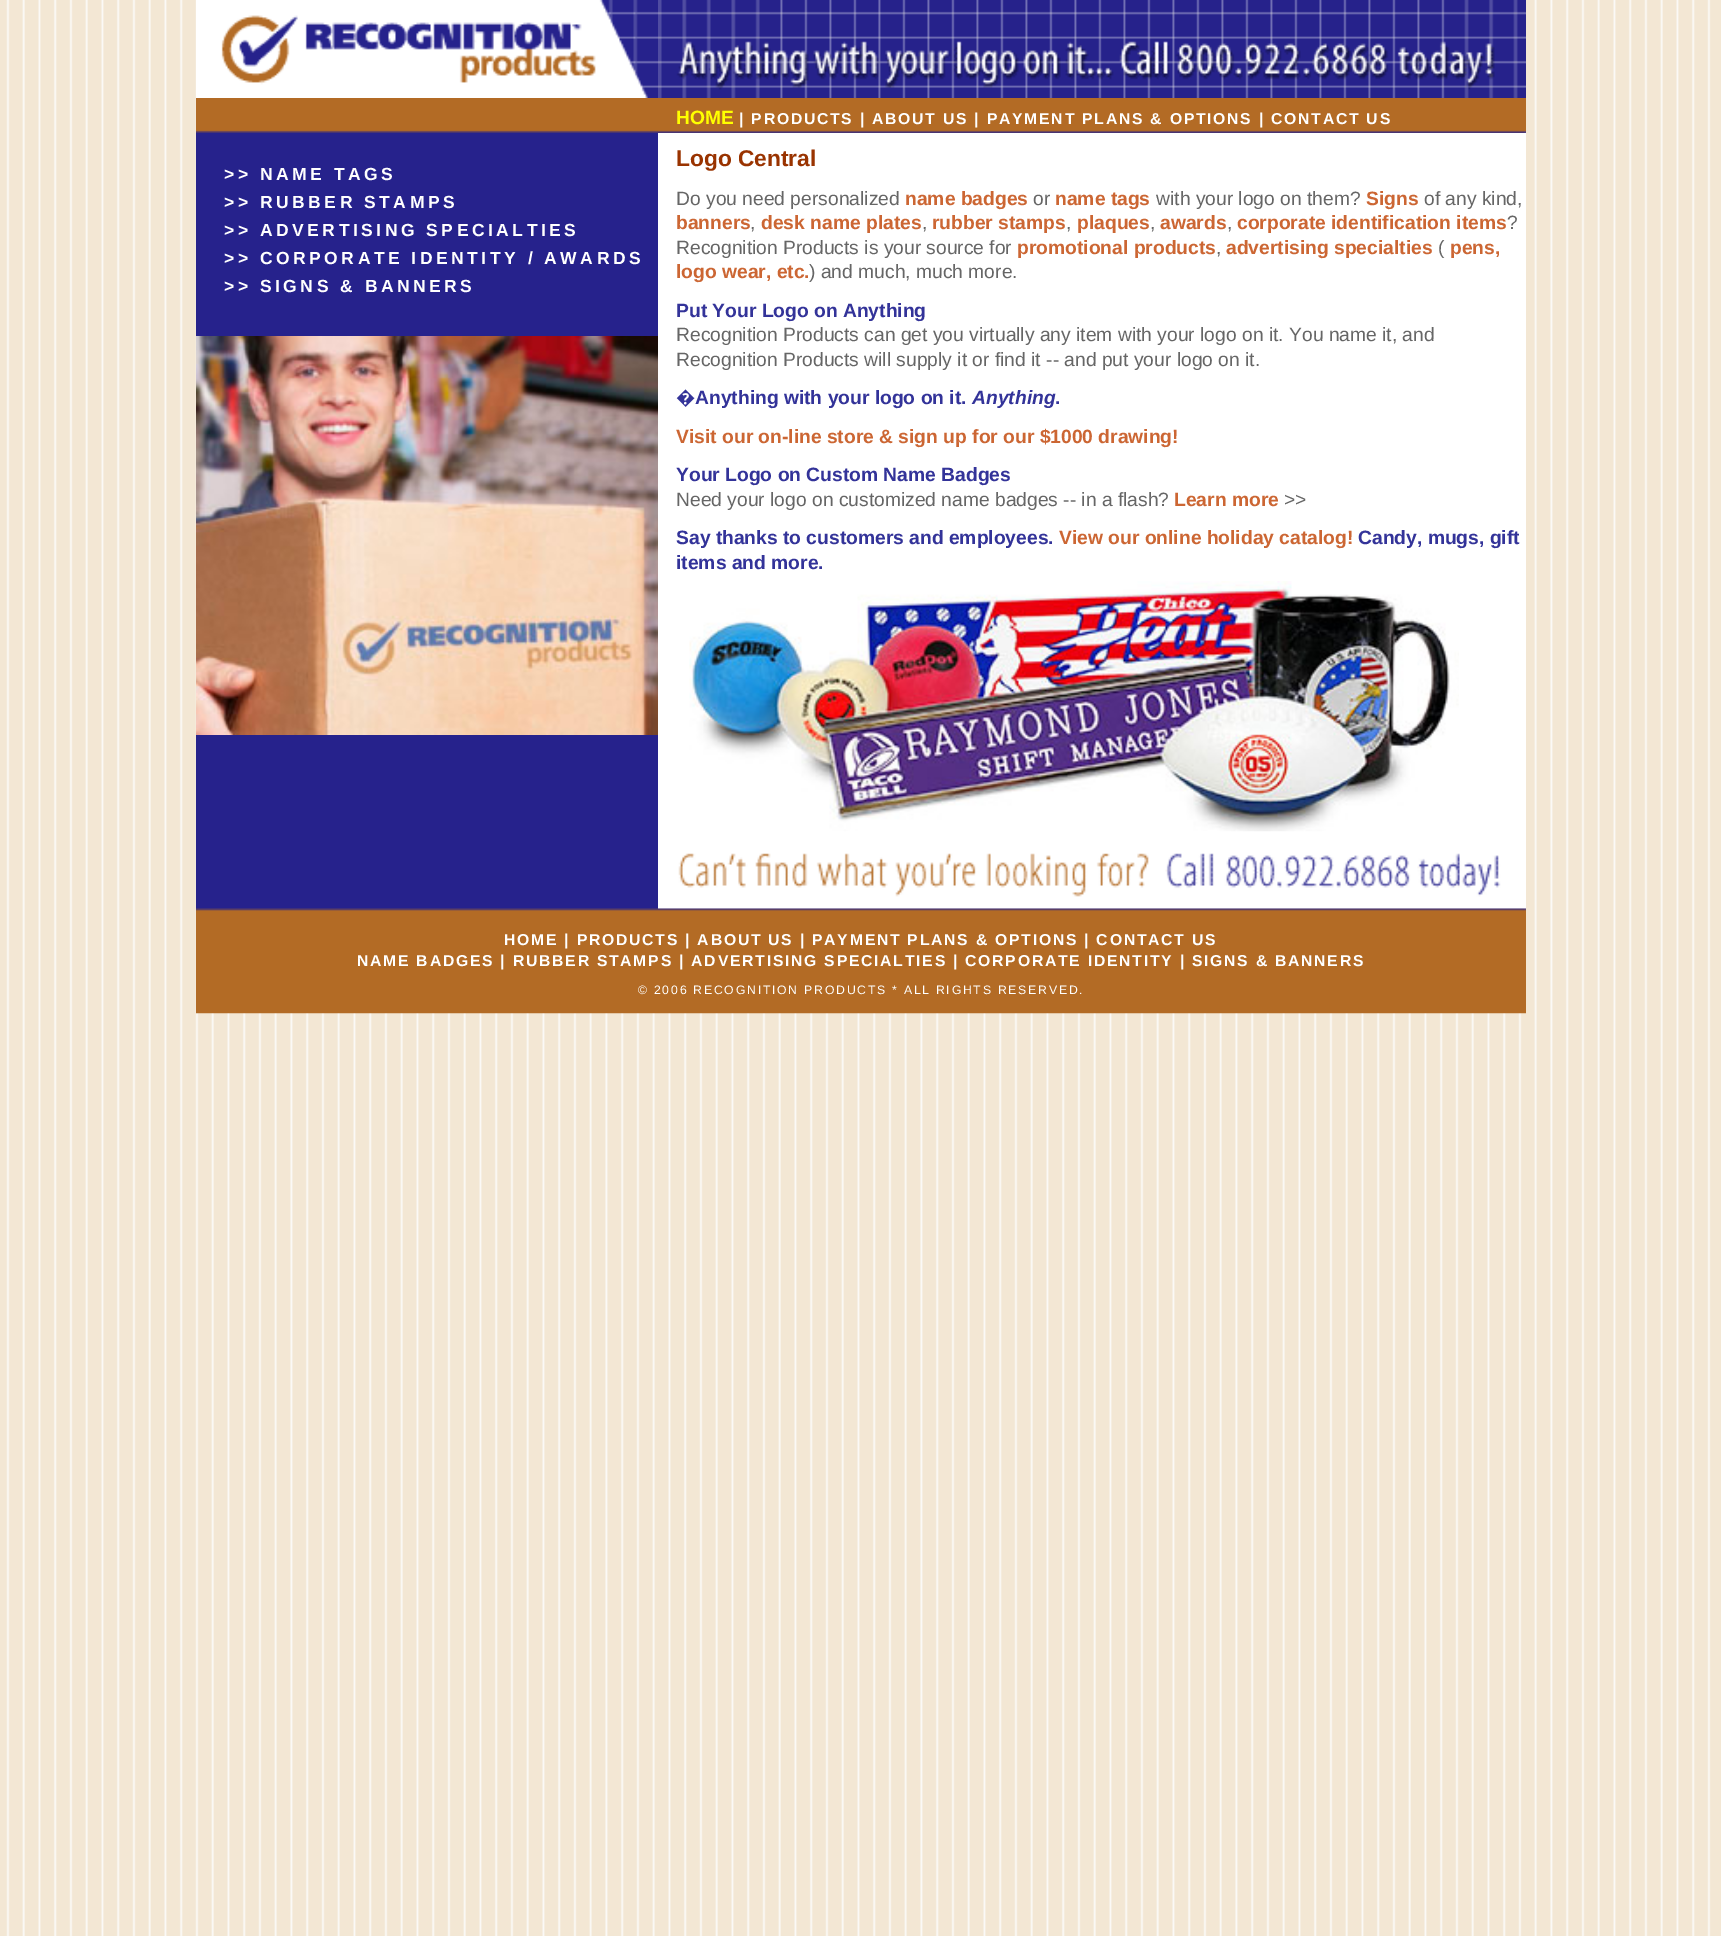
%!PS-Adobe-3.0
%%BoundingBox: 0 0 1721 1936
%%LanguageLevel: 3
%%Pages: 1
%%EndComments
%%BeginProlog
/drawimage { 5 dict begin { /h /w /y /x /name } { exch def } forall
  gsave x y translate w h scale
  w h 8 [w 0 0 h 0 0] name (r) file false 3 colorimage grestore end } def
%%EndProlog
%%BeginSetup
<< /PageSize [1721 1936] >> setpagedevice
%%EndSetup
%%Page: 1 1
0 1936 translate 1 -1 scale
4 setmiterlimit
1 setgray
0 0 1721 1936 rectfill
(images/1.raw) 0 0 1721 1936 drawimage
196 0 1330 909 rectfill
(images/2.raw) 221 0 437 98 drawimage
(images/3.raw) 658 0 868 98 drawimage
(images/4.raw) 196 98 1330 35 drawimage
0.149 0.133 0.549 setrgbcolor
196 133 462 776 rectfill
(images/5.raw) 196 336 462 399 drawimage
(images/6.raw) 689 581 770 251 drawimage
(images/8.raw) 196 908 1330 106 drawimage
(images/7.raw) 658 853 868 56 drawimage
/LiberationSans-Bold [19.25 0 0 -19.25 0 0] selectfont
1 1 0 setrgbcolor
676 124 moveto (HOME) show
/LiberationSans-Bold [15.75 0 0 -15.75 0 0] selectfont
1 setgray
739 124 moveto 1.75 0 (| PRODUCTS | ABOUT US | PAYMENT PLANS & OPTIONS | CONTACT US) ashow
/LiberationSans-Bold [17.5 0 0 -17.5 0 0] selectfont
224 180 moveto 3.5 0 (>> NAME TAGS) ashow
224 208 moveto 3.5 0 (>> RUBBER STAMPS) ashow
224 236 moveto 3.5 0 (>> ADVERTISING SPECIALTIES) ashow
224 264 moveto 3.5 0 (>> CORPORATE IDENTITY / AWARDS) ashow
224 292 moveto 3.5 0 (>> SIGNS & BANNERS) ashow
/LiberationSans-Bold [22.75 0 0 -22.75 0 0] selectfont
0.6 0.2 0 setrgbcolor
676 166 moveto (Logo Central) show
/LiberationSans-Regular [19.25 0 0 -19.25 0 0] selectfont
0.4 setgray
676 205 moveto (Do you need personalized) show
/LiberationSans-Bold [19.25 0 0 -19.25 0 0] selectfont
0.8 0.4 0.2 setrgbcolor
905 205 moveto (name badges) show
/LiberationSans-Regular [19.25 0 0 -19.25 0 0] selectfont
0.4 setgray
1033 205 moveto (or) show
/LiberationSans-Bold [19.25 0 0 -19.25 0 0] selectfont
0.8 0.4 0.2 setrgbcolor
1055 205 moveto (name tags) show
/LiberationSans-Regular [19.25 0 0 -19.25 0 0] selectfont
0.4 setgray
1156 205 moveto (with your logo on them?) show
/LiberationSans-Bold [19.25 0 0 -19.25 0 0] selectfont
0.8 0.4 0.2 setrgbcolor
1366 205 moveto (Signs) show
/LiberationSans-Regular [19.25 0 0 -19.25 0 0] selectfont
0.4 setgray
1424 205 moveto (of any kind,) show
/LiberationSans-Bold [19.25 0 0 -19.25 0 0] selectfont
0.8 0.4 0.2 setrgbcolor
676 229 moveto (banners) show
/LiberationSans-Regular [19.25 0 0 -19.25 0 0] selectfont
0.4 setgray
750 229 moveto (,) show
/LiberationSans-Bold [19.25 0 0 -19.25 0 0] selectfont
0.8 0.4 0.2 setrgbcolor
761 229 moveto (desk name plates) show
/LiberationSans-Regular [19.25 0 0 -19.25 0 0] selectfont
0.4 setgray
922 229 moveto (,) show
/LiberationSans-Bold [19.25 0 0 -19.25 0 0] selectfont
0.8 0.4 0.2 setrgbcolor
932 229 moveto (rubber stamps) show
/LiberationSans-Regular [19.25 0 0 -19.25 0 0] selectfont
0.4 setgray
1066 229 moveto (,) show
/LiberationSans-Bold [19.25 0 0 -19.25 0 0] selectfont
0.8 0.4 0.2 setrgbcolor
1077 229 moveto (plaques) show
/LiberationSans-Regular [19.25 0 0 -19.25 0 0] selectfont
0.4 setgray
1150 229 moveto (,) show
/LiberationSans-Bold [19.25 0 0 -19.25 0 0] selectfont
0.8 0.4 0.2 setrgbcolor
1160 229 moveto (awards) show
/LiberationSans-Regular [19.25 0 0 -19.25 0 0] selectfont
0.4 setgray
1227 229 moveto (,) show
/LiberationSans-Bold [19.25 0 0 -19.25 0 0] selectfont
0.8 0.4 0.2 setrgbcolor
1237 229 moveto (corporate identification items) show
/LiberationSans-Regular [19.25 0 0 -19.25 0 0] selectfont
0.4 setgray
1507 229 moveto (?) show
676 254 moveto (Recognition Products is your source for) show
/LiberationSans-Bold [19.25 0 0 -19.25 0 0] selectfont
0.8 0.4 0.2 setrgbcolor
1017 254 moveto (promotional products) show
/LiberationSans-Regular [19.25 0 0 -19.25 0 0] selectfont
0.4 setgray
1216 254 moveto (,) show
/LiberationSans-Bold [19.25 0 0 -19.25 0 0] selectfont
0.8 0.4 0.2 setrgbcolor
1226 254 moveto (advertising specialties) show
/LiberationSans-Regular [19.25 0 0 -19.25 0 0] selectfont
0.4 setgray
1438 254 moveto (\() show
/LiberationSans-Bold [19.25 0 0 -19.25 0 0] selectfont
0.8 0.4 0.2 setrgbcolor
1450 254 moveto (pens,) show
676 278 moveto (logo wear, etc.) show
/LiberationSans-Regular [19.25 0 0 -19.25 0 0] selectfont
0.4 setgray
809 278 moveto (\) and much, much more.) show
/LiberationSans-Bold [19.25 0 0 -19.25 0 0] selectfont
0.2 0.2 0.6 setrgbcolor
676 317 moveto (Put Your Logo on Anything) show
/LiberationSans-Regular [19.25 0 0 -19.25 0 0] selectfont
0.4 setgray
676 341 moveto (Recognition Products can get you virtually any item with your logo on it. You name it, and) show
676 366 moveto (Recognition Products will supply it or find it -- and put your logo on it.) show
/NotoSans-Bold [19.25 0 0 -19.25 0 0] selectfont
0.2 0.2 0.6 setrgbcolor
676 404 moveto (�) show
/LiberationSans-Bold [19.25 0 0 -19.25 0 0] selectfont
695 404 moveto (Anything with your logo on it.) show
/LiberationSans-BoldItalic [19.25 0 0 -19.25 0 0] selectfont
972 404 moveto (Anything) show
/LiberationSans-Bold [19.25 0 0 -19.25 0 0] selectfont
1055 404 moveto (.) show
0.8 0.4 0.2 setrgbcolor
676 443 moveto (Visit our on-line store & sign up for our $1000 drawing!) show
0.2 0.2 0.6 setrgbcolor
676 481 moveto (Your Logo on Custom Name Badges) show
/LiberationSans-Regular [19.25 0 0 -19.25 0 0] selectfont
0.4 setgray
676 506 moveto (Need your logo on customized name badges -- in a flash?) show
/LiberationSans-Bold [19.25 0 0 -19.25 0 0] selectfont
0.8 0.4 0.2 setrgbcolor
1174 506 moveto (Learn more) show
/LiberationSans-Regular [19.25 0 0 -19.25 0 0] selectfont
0.4 setgray
1284 506 moveto (>>) show
/LiberationSans-Bold [19.25 0 0 -19.25 0 0] selectfont
0.2 0.2 0.6 setrgbcolor
676 544 moveto (Say thanks to customers and employees.) show
0.8 0.4 0.2 setrgbcolor
1059 544 moveto (View our online holiday catalog!) show
0.2 0.2 0.6 setrgbcolor
1358 544 moveto (Candy, mugs, gift) show
676 569 moveto (items and more.) show
/LiberationSans-Bold [15.75 0 0 -15.75 0 0] selectfont
1 setgray
504 945 moveto 1.75 0 (HOME | PRODUCTS | ABOUT US | PAYMENT PLANS & OPTIONS | CONTACT US) ashow
357 966 moveto 1.75 0 (NAME BADGES | RUBBER STAMPS | ADVERTISING SPECIALTIES | CORPORATE IDENTITY | SIGNS & BANNERS) ashow
/LiberationSans-Regular [12.25 0 0 -12.25 0 0] selectfont
638 994 moveto 1.75 0 (© 2006 RECOGNITION PRODUCTS * ALL RIGHTS RESERVED.) ashow
showpage
%%EOF
